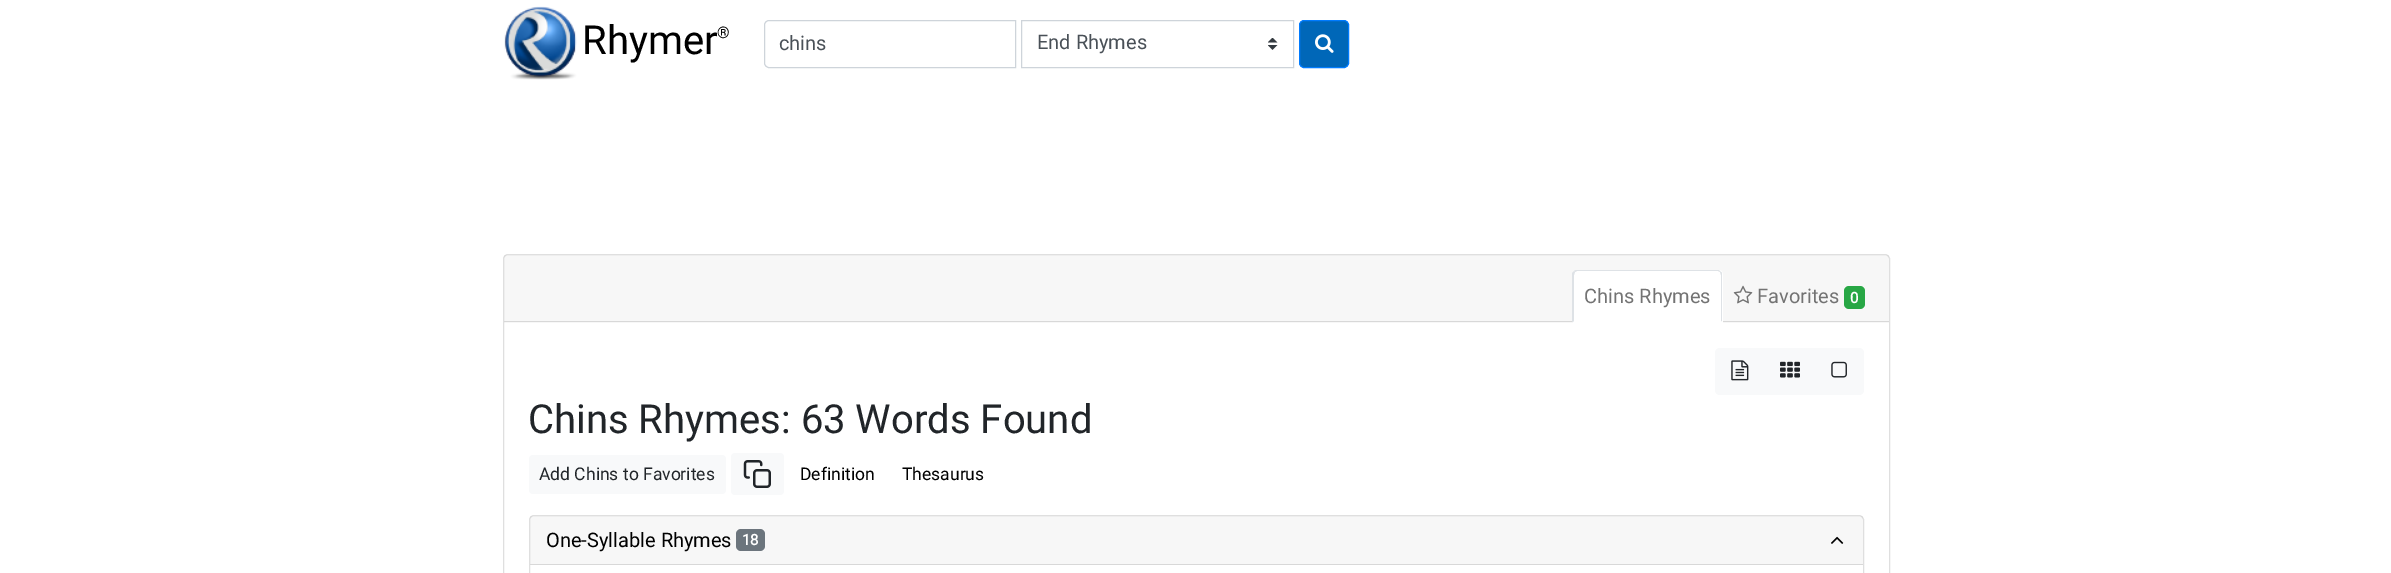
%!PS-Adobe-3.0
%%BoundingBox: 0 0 2391 573
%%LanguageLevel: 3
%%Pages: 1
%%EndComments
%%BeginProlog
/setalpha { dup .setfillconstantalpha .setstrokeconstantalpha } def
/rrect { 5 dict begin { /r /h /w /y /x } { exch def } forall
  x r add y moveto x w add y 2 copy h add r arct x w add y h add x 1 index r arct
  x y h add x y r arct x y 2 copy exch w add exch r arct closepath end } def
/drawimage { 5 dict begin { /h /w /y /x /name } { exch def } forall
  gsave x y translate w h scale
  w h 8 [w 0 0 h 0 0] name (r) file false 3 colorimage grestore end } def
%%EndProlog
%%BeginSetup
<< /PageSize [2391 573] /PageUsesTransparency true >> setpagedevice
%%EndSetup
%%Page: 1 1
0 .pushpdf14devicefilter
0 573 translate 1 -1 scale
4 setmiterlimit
1 setgray
0 0 2391 573 rectfill
(images/1.raw) 504 6 73 74 drawimage
0.808 0.831 0.855 setrgbcolor
newpath 769 20.5 moveto 1015.5 20.5 lineto 1015.5 67.5 lineto 769 67.5 lineto 766.5 67.5 764.5 65.5 764.5 63 curveto 764.5 25 lineto 764.5 22.5 766.5 20.5 769 20.5 curveto closepath stroke
(images/2.raw) 1268 38 10 12 drawimage
1021.5 20.5 272 47 rectstroke
0 0.404 0.722 setrgbcolor
1299.5 20.5 49 47 4.5 rrect gsave fill grestore
0 0.482 1 setrgbcolor
stroke
(images/3.raw) 1315 34 19 19 drawimage
0.875 setgray
503.5 254.5 1386 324 4.5 rrect stroke
0.03 setalpha
0 setgray
504 255 1385 68 rectfill
1 setalpha
0.847 setgray
504 321 1385 1 rectfill
1 setgray
newpath 1578 270 moveto 1718 270 lineto 1721 270 1723 272 1723 275 curveto 1723 323 lineto 1573 323 lineto 1573 275 lineto 1573 272 1575 270 1578 270 curveto closepath fill
0.871 0.886 0.902 setrgbcolor
newpath 1578 270 moveto 1576 270 1575 270 1574 271 curveto 1575 272 lineto 1577 271 lineto 1718 271 lineto 1720 272 lineto 1721 272 lineto 1720 271 1719 270 1718 270 curveto closepath fill
newpath 1721 272 moveto 1722 272 1722 274 1722 275 curveto 1722 322 lineto 1721 321 lineto 1721 275 lineto 1720 272 lineto closepath fill
1 setgray
newpath 1722 322 moveto 1721 321 lineto 1574 321 lineto 1573 322 lineto closepath fill
0.871 0.886 0.902 setrgbcolor
newpath 1572 273 moveto 1574 271 lineto 1575 272 lineto 1574 275 lineto 1574 321 lineto 1573 322 lineto 1572 322 lineto closepath fill
(images/4.raw) 1733 285 20 19 drawimage
0.157 0.655 0.271 setrgbcolor
1844 286 21 23 5 rrect fill
0.973 0.976 0.98 setrgbcolor
newpath 1720 348 moveto 1765 348 lineto 1765 395 lineto 1720 395 lineto 1717 395 1715 393 1715 390 curveto 1715 353 lineto 1715 350 1717 348 1720 348 curveto closepath fill
(images/5.raw) 1731 360 18 21 drawimage
1765 348 50 47 rectfill
(images/6.raw) 1780 361 20 17 drawimage
newpath 1815 348 moveto 1859 348 lineto 1862 348 1864 350 1864 353 curveto 1864 390 lineto 1864 393 1862 395 1859 395 curveto 1815 395 lineto closepath fill
(images/7.raw) 1831 361 16 17 drawimage
529 455 197 39 4 rrect fill
731 453 53 42 4 rrect fill
(images/8.raw) 743 460 28 28 drawimage
0.875 setgray
529.5 515.5 1334 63 4.5 rrect stroke
0.03 setalpha
0 setgray
530 516 1333 48 rectfill
1 setalpha
0.847 setgray
530 564 1333 1 rectfill
0.424 0.459 0.49 setrgbcolor
736 529 29 22 5 rrect fill
(images/9.raw) 1831 536 13 8 drawimage
/Roboto-Regular [40 0 0 -40 0 0] selectfont
0 setgray
582 54 moveto (Rhymer) show
/Roboto-Regular [16 0 0 -16 0 0] selectfont
717 38 moveto (®) show
/Roboto-Regular [20 0 0 -20 0 0] selectfont
0.286 0.314 0.341 setrgbcolor
779 50 moveto (chins) show
1037 49 moveto (End Rhymes) show
0.451 setgray
1584 303 moveto (Chins Rhymes) show
1757 303 moveto (Favorites) show
/Roboto-Bold [15 0 0 -15 0 0] selectfont
1 setgray
1850 303 moveto (0) show
/Roboto-Regular [40 0 0 -40 0 0] selectfont
0.129 0.145 0.161 setrgbcolor
528 433 moveto (Chins Rhymes: 63 Words Found) show
/Roboto-Regular [17.5 0 0 -17.5 0 0] selectfont
539 480 moveto (Add Chins to Favorites) show
0 setgray
800 480 moveto (Definition) show
902 480 moveto (Thesaurus) show
/Roboto-Regular [20 0 0 -20 0 0] selectfont
546 547 moveto (One-Syllable Rhymes) show
/Roboto-Bold [15 0 0 -15 0 0] selectfont
1 setgray
742 545 moveto (18) show
.poppdf14devicefilter showpage
%%EOF
